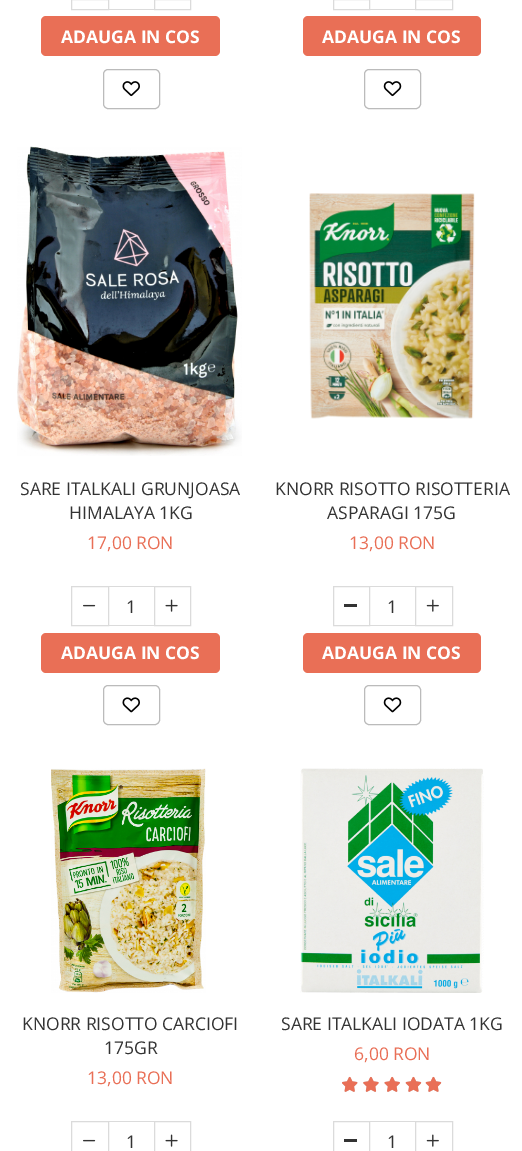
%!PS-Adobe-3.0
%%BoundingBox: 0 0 522 1151
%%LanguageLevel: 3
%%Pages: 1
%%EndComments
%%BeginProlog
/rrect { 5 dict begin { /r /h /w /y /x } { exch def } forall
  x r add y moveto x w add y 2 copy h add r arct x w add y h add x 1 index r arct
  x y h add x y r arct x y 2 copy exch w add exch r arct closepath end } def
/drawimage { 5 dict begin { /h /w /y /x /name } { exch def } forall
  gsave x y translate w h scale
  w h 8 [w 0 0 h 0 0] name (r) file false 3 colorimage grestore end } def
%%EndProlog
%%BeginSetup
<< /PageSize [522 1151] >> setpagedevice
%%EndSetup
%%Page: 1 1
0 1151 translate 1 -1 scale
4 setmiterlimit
1 setgray
0 0 522 1151 rectfill
0.859 setgray
71.5 -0.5 37 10 rectstroke
109 9 45 1 rectfill
154.5 -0.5 36 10 rectstroke
0.914 0.435 0.337 setrgbcolor
41 16 179 40 5 rrect fill
0.733 setgray
103.5 69.5 56 39 4.5 rrect stroke
(images/1.raw) 122 81 18 16 drawimage
0.859 setgray
333.5 -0.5 36 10 rectstroke
370 9 45 1 rectfill
415.5 -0.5 37 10 rectstroke
0.914 0.435 0.337 setrgbcolor
303 16 178 40 5 rrect fill
0.733 setgray
364.5 69.5 56 39 4.5 rrect stroke
(images/2.raw) 383 81 19 16 drawimage
(images/3.raw) 17 146 225 310 drawimage
0.859 setgray
71.5 586.5 37 39 rectstroke
(images/4.raw) 83 604 13 3 drawimage
109 586 45 1 rectfill
109 625 45 1 rectfill
154.5 586.5 36 39 rectstroke
(images/5.raw) 165 599 13 13 drawimage
0.914 0.435 0.337 setrgbcolor
41 633 179 40 5 rrect fill
0.733 setgray
103.5 685.5 56 39 4.5 rrect stroke
(images/6.raw) 122 697 18 16 drawimage
(images/7.raw) 309 193 166 226 drawimage
0.859 setgray
333.5 586.5 36 39 rectstroke
0.2 setgray
344 604 13 3 rectfill
0.859 setgray
370 586 45 1 rectfill
370 625 45 1 rectfill
415.5 586.5 37 39 rectstroke
(images/8.raw) 426 599 13 13 drawimage
0.914 0.435 0.337 setrgbcolor
303 633 178 40 5 rrect fill
0.733 setgray
364.5 685.5 56 39 4.5 rrect stroke
(images/9.raw) 383 697 19 16 drawimage
(images/10.raw) 51 768 155 225 drawimage
0.859 setgray
71.5 1121.5 37 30 rectstroke
(images/4.raw) 83 1139 13 3 drawimage
109 1121 45 1 rectfill
154.5 1121.5 36 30 rectstroke
(images/5.raw) 165 1134 13 13 drawimage
(images/11.raw) 300 768 184 225 drawimage
(images/16.raw) 342 1077 16 15 drawimage
(images/12.raw) 342 1076 16 16 drawimage
(images/17.raw) 363 1077 16 15 drawimage
(images/13.raw) 363 1076 16 16 drawimage
(images/18.raw) 384 1077 16 15 drawimage
(images/14.raw) 384 1076 16 16 drawimage
(images/19.raw) 405 1077 17 15 drawimage
(images/15.raw) 405 1076 17 16 drawimage
(images/19.raw) 425 1077 17 15 drawimage
(images/15.raw) 425 1076 17 16 drawimage
333.5 1121.5 36 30 rectstroke
0.2 setgray
344 1139 13 3 rectfill
0.859 setgray
370 1121 45 1 rectfill
415.5 1121.5 37 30 rectstroke
(images/8.raw) 426 1134 13 13 drawimage
/OpenSans-Bold [17.5 0 0 -17.5 0 0] selectfont
1 setgray
61 43 moveto (ADAUGA IN COS) show
322 43 moveto (ADAUGA IN COS) show
/OpenSans-Regular [17.5 0 0 -17.5 0 0] selectfont
0.2 setgray
20 495 moveto (SARE ITALKALI GRUNJOASA) show
69 519 moveto (HIMALAYA 1KG) show
0.914 0.435 0.337 setrgbcolor
87 549 moveto (17,00 RON) show
0.2 setgray
126 613 moveto (1) show
/OpenSans-Bold [17.5 0 0 -17.5 0 0] selectfont
1 setgray
61 659 moveto (ADAUGA IN COS) show
/OpenSans-Regular [17.5 0 0 -17.5 0 0] selectfont
0.2 setgray
275 495 moveto (KNORR RISOTTO RISOTTERIA) show
327 519 moveto (ASPARAGI 175G) show
0.914 0.435 0.337 setrgbcolor
349 549 moveto (13,00 RON) show
0.2 setgray
387 613 moveto (1) show
/OpenSans-Bold [17.5 0 0 -17.5 0 0] selectfont
1 setgray
322 659 moveto (ADAUGA IN COS) show
/OpenSans-Regular [17.5 0 0 -17.5 0 0] selectfont
0.2 setgray
22 1030 moveto (KNORR RISOTTO CARCIOFI) show
104 1054 moveto (175GR) show
0.914 0.435 0.337 setrgbcolor
87 1084 moveto (13,00 RON) show
0.2 setgray
126 1148 moveto (1) show
281 1030 moveto (SARE ITALKALI IODATA 1KG) show
0.914 0.435 0.337 setrgbcolor
354 1060 moveto (6,00 RON) show
0.2 setgray
387 1148 moveto (1) show
showpage
%%EOF
